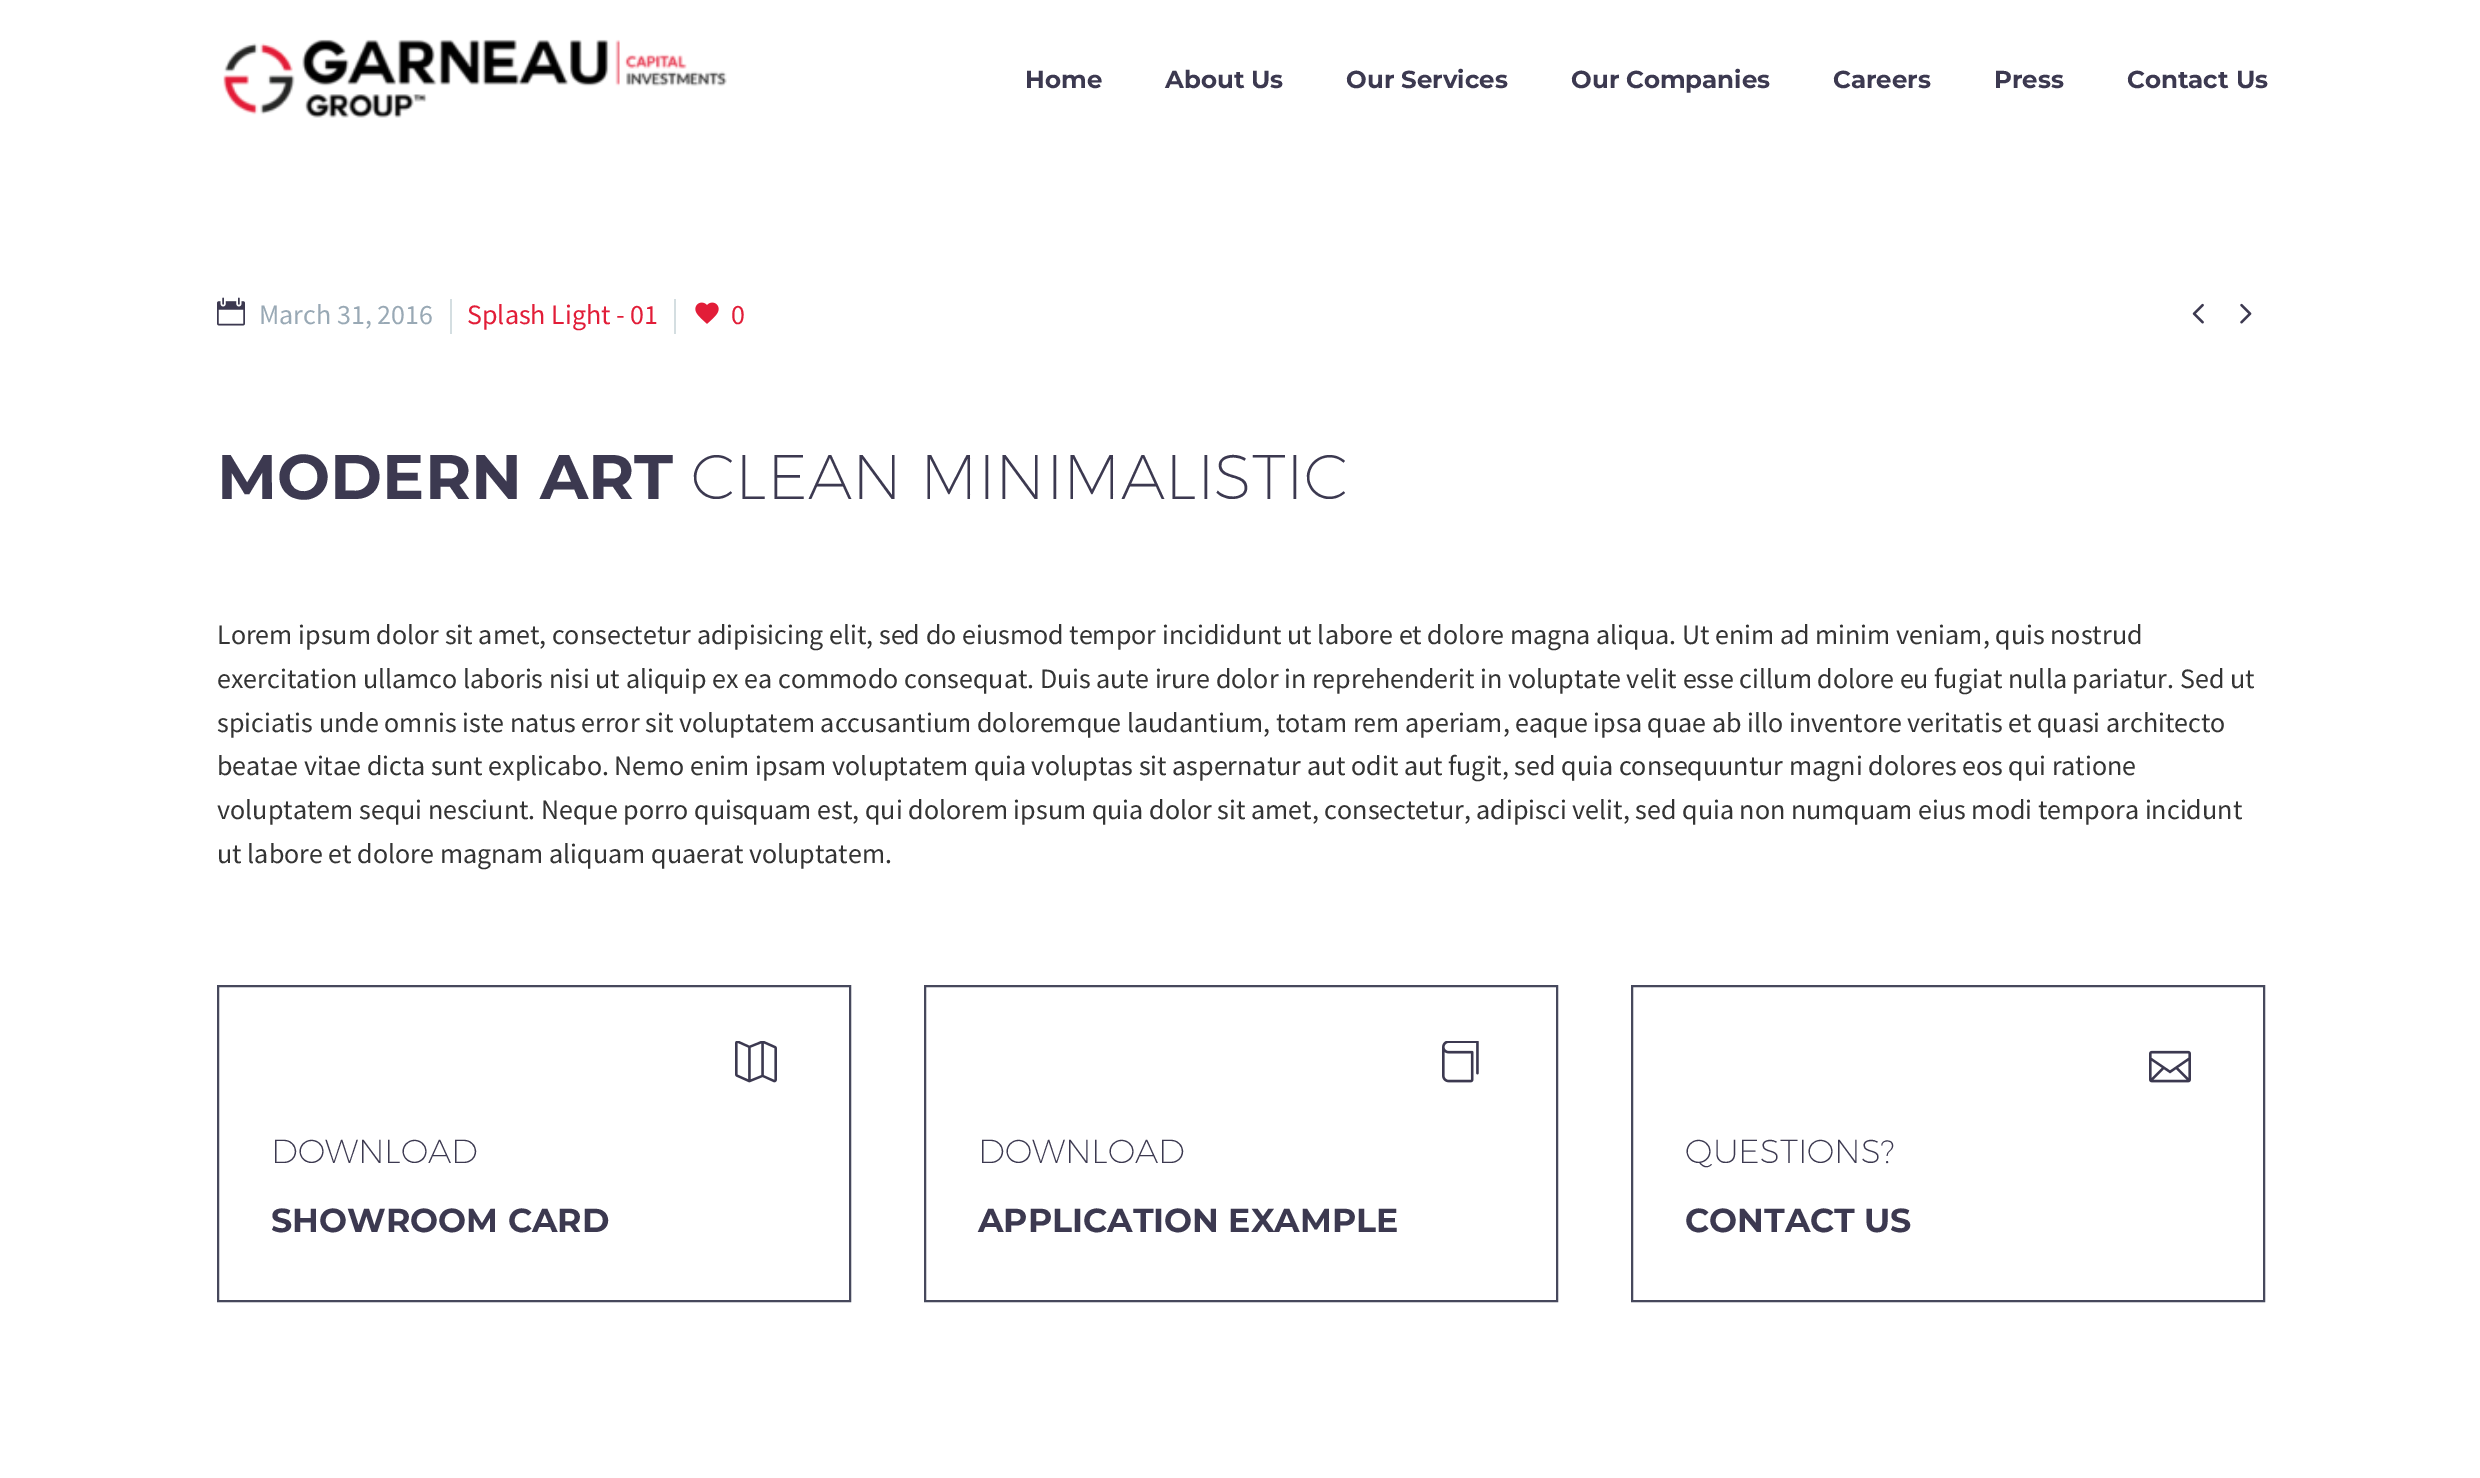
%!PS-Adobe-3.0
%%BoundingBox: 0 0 2480 1478
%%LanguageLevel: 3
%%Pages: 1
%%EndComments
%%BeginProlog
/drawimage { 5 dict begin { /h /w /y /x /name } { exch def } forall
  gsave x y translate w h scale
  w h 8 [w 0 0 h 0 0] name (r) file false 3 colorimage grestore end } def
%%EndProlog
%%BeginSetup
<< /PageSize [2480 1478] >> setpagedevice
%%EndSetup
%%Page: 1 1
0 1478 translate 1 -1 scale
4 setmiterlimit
1 setgray
0 0 2480 1478 rectfill
(images/1.raw) 223 39 504 79 drawimage
(images/2.raw) 217 297 28 29 drawimage
0.831 0.871 0.882 setrgbcolor
450 299 2 35 rectfill
674 299 2 35 rectfill
(images/3.raw) 695 302 24 22 drawimage
(images/4.raw) 2192 303 12 21 drawimage
(images/5.raw) 2240 303 12 21 drawimage
0.275 0.282 0.361 setrgbcolor
2 setlinewidth
218 986 632 315 rectstroke
(images/6.raw) 735 1041 21 42 drawimage
(images/7.raw) 756 1041 21 42 drawimage
925 986 632 315 rectstroke
(images/8.raw) 1442 1041 21 42 drawimage
(images/9.raw) 1463 1041 16 42 drawimage
1632 986 632 315 rectstroke
(images/10.raw) 2149 1050 21 33 drawimage
(images/11.raw) 2170 1050 21 33 drawimage
/Montserrat-Bold [24.5 0 0 -24.5 0 0] selectfont
0.235 0.224 0.314 setrgbcolor
1025 88 moveto (Home) show
1165 88 moveto (About Us) show
1346 88 moveto (Our Services) show
1571 88 moveto (Our Companies) show
1833 88 moveto (Careers) show
1994 88 moveto (Press) show
2127 88 moveto (Contact Us) show
/SourceSansPro-Regular [28 0 0 -28 0 0] selectfont
0.6 0.663 0.71 setrgbcolor
259 324 moveto (March 31, 2016) show
0.886 0.114 0.22 setrgbcolor
467 324 moveto (Splash Light - 01) show
731 324 moveto (0) show
/Montserrat-Bold [63 0 0 -63 0 0] selectfont
0.235 0.224 0.314 setrgbcolor
217 499 moveto (MODERN ART) show
/Montserrat-ExtraLight [63 0 0 -63 0 0] selectfont
691 499 moveto (CLEAN MINIMALISTIC) show
/SourceSansPro-Regular [28 0 0 -28 0 0] selectfont
0.204 setgray
217 644 moveto (Lorem ipsum dolor sit amet, consectetur adipisicing elit, sed do eiusmod tempor incididunt ut labore et dolore magna aliqua. Ut enim ad minim veniam, quis nostrud) show
217 688 moveto (exercitation ullamco laboris nisi ut aliquip ex ea commodo consequat. Duis aute irure dolor in reprehenderit in voluptate velit esse cillum dolore eu fugiat nulla pariatur. Sed ut) show
217 732 moveto (spiciatis unde omnis iste natus error sit voluptatem accusantium doloremque laudantium, totam rem aperiam, eaque ipsa quae ab illo inventore veritatis et quasi architecto) show
217 775 moveto (beatae vitae dicta sunt explicabo. Nemo enim ipsam voluptatem quia voluptas sit aspernatur aut odit aut fugit, sed quia consequuntur magni dolores eos qui ratione) show
217 819 moveto (voluptatem sequi nesciunt. Neque porro quisquam est, qui dolorem ipsum quia dolor sit amet, consectetur, adipisci velit, sed quia non numquam eius modi tempora incidunt) show
217 863 moveto (ut labore et dolore magnam aliquam quaerat voluptatem.) show
/Montserrat-ExtraLight [33.25 0 0 -33.25 0 0] selectfont
0.235 0.224 0.314 setrgbcolor
271 1163 moveto (DOWNLOAD) show
/Montserrat-Bold [33.25 0 0 -33.25 0 0] selectfont
271 1232 moveto (SHOWROOM CARD) show
/Montserrat-ExtraLight [33.25 0 0 -33.25 0 0] selectfont
978 1163 moveto (DOWNLOAD) show
/Montserrat-Bold [33.25 0 0 -33.25 0 0] selectfont
978 1232 moveto (APPLICATION EXAMPLE) show
/Montserrat-ExtraLight [33.25 0 0 -33.25 0 0] selectfont
1685 1163 moveto (QUESTIONS?) show
/Montserrat-Bold [33.25 0 0 -33.25 0 0] selectfont
1685 1232 moveto (CONTACT US) show
showpage
%%EOF
